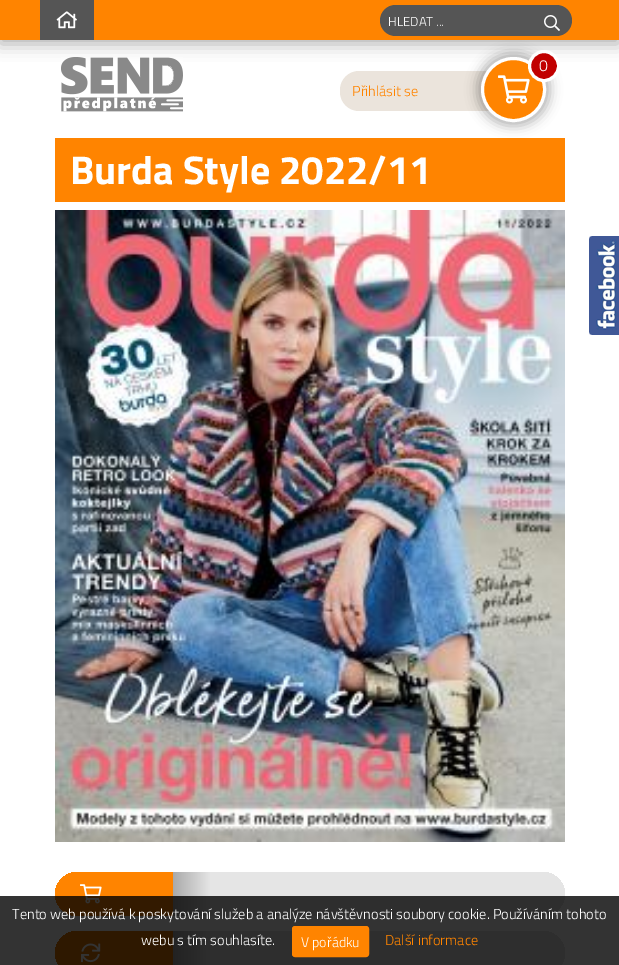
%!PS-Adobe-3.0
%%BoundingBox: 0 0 619 965
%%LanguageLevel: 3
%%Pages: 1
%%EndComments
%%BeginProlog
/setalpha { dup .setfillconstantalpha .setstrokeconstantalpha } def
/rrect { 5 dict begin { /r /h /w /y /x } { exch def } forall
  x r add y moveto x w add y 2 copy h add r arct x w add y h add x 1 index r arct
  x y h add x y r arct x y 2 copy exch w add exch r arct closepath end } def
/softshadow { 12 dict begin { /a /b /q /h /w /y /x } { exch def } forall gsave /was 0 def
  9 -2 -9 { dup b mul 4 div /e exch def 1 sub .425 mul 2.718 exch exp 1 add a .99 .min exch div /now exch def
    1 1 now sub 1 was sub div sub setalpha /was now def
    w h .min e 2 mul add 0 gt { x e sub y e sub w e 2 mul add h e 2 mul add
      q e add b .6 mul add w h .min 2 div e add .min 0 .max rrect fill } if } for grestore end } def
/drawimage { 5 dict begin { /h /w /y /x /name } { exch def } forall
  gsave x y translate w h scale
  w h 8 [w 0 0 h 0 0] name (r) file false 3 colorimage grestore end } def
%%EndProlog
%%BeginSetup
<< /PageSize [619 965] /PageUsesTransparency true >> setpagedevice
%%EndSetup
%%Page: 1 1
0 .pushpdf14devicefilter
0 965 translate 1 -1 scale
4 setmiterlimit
1 setgray
0 0 619 965 rectfill
0 setgray
0 4 619 40 0 8 0.32 softshadow
1 0.518 0 setrgbcolor
0 0 619 40 rectfill
0.333 setgray
40 0 54 40 rectfill
(images/1.raw) 56 11 21 18 drawimage
newpath 395.5 5 moveto 533 5 lineto 533 36 lineto 395.5 36 lineto 387 36 380 29 380 20.5 curveto 380 12 387 5 395.5 5 curveto closepath fill
newpath 532 5 moveto 556.5 5 lineto 565 5 572 12 572 20.5 curveto 572 29 565 36 556.5 36 curveto 532 36 lineto closepath fill
(images/2.raw) 544 15 16 16 drawimage
(images/3.raw) 61 57 122 55 drawimage
0.922 0.894 0.863 setrgbcolor
340 71 200 40 19 rrect fill
1 0.518 0 setrgbcolor
55 138 510 64 rectfill
0 setgray
477 53 73 73 36.5 6 0.3 softshadow
1 0.518 0 setrgbcolor
newpath 513.5 89.5 31 0 360 arc closepath gsave fill grestore
1 setgray
3 setlinewidth
stroke
(images/4.raw) 498 75 32 29 drawimage
0.757 0 0 setrgbcolor
newpath 544 66 14.5 0 360 arc closepath gsave fill grestore
1 setgray
stroke
(images/5.raw) 55 210 510 632 drawimage
gsave 55 872 510 44 22 rrect clip newpath
<< /ShadingType 2 /ColorSpace /DeviceRGB /Coords [55 894 591 894] /Extend [true true] /Function << /FunctionType 3 /Domain [0 1] /Functions [<< /FunctionType 2 /Domain [0 1] /C0 [1 0.518 0] /C1 [1 0.518 0] /N 1 >> << /FunctionType 2 /Domain [0 1] /C0 [0.667 0.667 0.667] /C1 [0.898 0.898 0.898] /N 1 >> << /FunctionType 2 /Domain [0 1] /C0 [0.898 0.898 0.898] /C1 [0.898 0.898 0.898] /N 1 >>] /Bounds [0.22 0.29] /Encode [0 1 0 1 0 1] >> >> shfill grestore
(images/6.raw) 80 884 22 20 drawimage
gsave 55 931 510 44 22 rrect clip newpath
<< /ShadingType 2 /ColorSpace /DeviceRGB /Coords [55 953 591 953] /Extend [true true] /Function << /FunctionType 3 /Domain [0 1] /Functions [<< /FunctionType 2 /Domain [0 1] /C0 [0.902 0.467 0] /C1 [0.902 0.467 0] /N 1 >> << /FunctionType 2 /Domain [0 1] /C0 [0.667 0.667 0.667] /C1 [0.898 0.898 0.898] /N 1 >> << /FunctionType 2 /Domain [0 1] /C0 [0.898 0.898 0.898] /C1 [0.898 0.898 0.898] /N 1 >>] /Bounds [0.22 0.29] /Encode [0 1 0 1 0 1] >> >> shfill grestore
(images/7.raw) 81 943 20 20 drawimage
(images/8.raw) 589 236 30 99 drawimage
0.8 setalpha
0 setgray
0 896 619 69 rectfill
1 setalpha
1 0.518 0 setrgbcolor
292.5 926.5 76 30 2.5 rrect gsave fill grestore
1 setlinewidth
stroke
/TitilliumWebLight-Light [13 0 0 -13 0 0] selectfont
1 setgray
388 26 moveto (HLEDAT ...) show
/TitilliumWebLight-Light [16 0 0 -16 0 0] selectfont
539 71 moveto (0) show
/TitilliumWebLight-Light [14.4 0 0 -14.4 0 0] selectfont
1 0.518 0 setrgbcolor
352 96 moveto (Přihlásit se) show
/TitilliumWeb-Bold [40 0 0 -40 0 0] selectfont
1 setgray
70 184 moveto (Burda Style 2022/11) show
/TitilliumWebLight-Light [14.4 0 0 -14.4 0 0] selectfont
12 919 moveto (Tento web používá k poskytování služeb a analýze návštěvnosti soubory cookie. Používáním tohoto) show
141 945 moveto (webu s tím souhlasíte.) show
/TitilliumWebLight-Light [14 0 0 -14 0 0] selectfont
301 947 moveto (V pořádku) show
/TitilliumWebLight-Light [14.4 0 0 -14.4 0 0] selectfont
1 0.518 0 setrgbcolor
385 945 moveto (Další informace) show
.poppdf14devicefilter showpage
%%EOF
